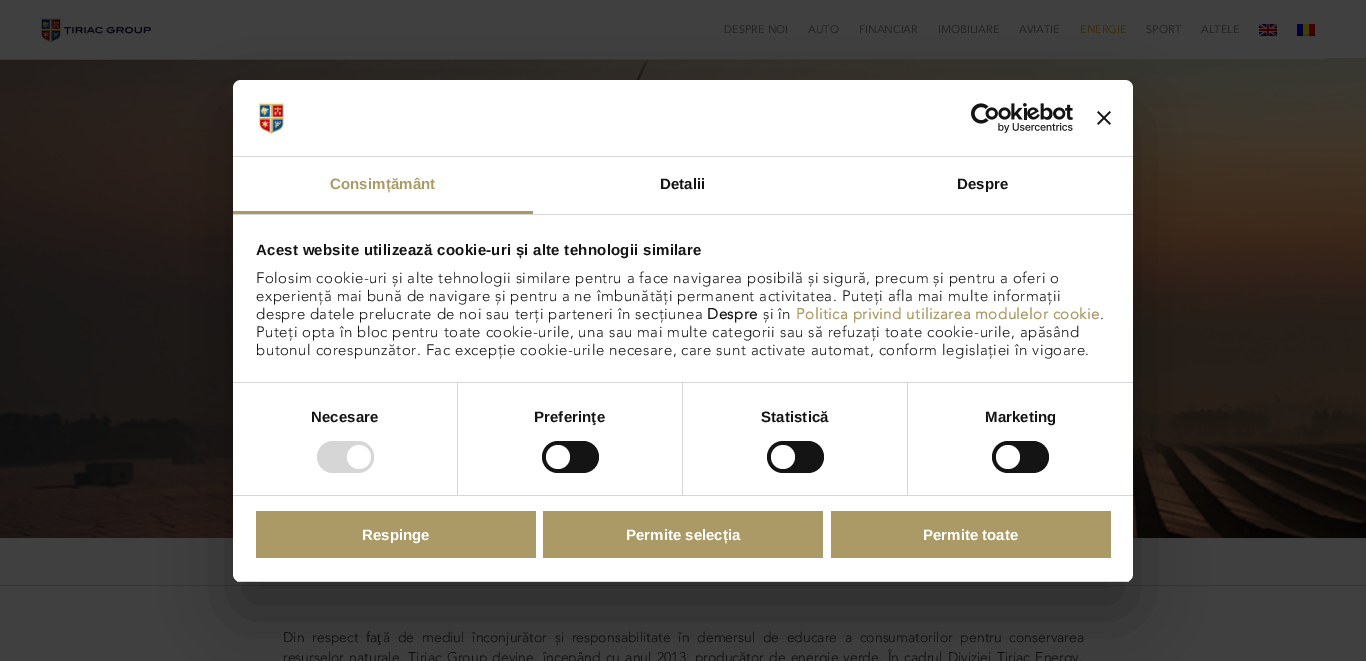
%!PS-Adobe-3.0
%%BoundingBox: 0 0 1366 661
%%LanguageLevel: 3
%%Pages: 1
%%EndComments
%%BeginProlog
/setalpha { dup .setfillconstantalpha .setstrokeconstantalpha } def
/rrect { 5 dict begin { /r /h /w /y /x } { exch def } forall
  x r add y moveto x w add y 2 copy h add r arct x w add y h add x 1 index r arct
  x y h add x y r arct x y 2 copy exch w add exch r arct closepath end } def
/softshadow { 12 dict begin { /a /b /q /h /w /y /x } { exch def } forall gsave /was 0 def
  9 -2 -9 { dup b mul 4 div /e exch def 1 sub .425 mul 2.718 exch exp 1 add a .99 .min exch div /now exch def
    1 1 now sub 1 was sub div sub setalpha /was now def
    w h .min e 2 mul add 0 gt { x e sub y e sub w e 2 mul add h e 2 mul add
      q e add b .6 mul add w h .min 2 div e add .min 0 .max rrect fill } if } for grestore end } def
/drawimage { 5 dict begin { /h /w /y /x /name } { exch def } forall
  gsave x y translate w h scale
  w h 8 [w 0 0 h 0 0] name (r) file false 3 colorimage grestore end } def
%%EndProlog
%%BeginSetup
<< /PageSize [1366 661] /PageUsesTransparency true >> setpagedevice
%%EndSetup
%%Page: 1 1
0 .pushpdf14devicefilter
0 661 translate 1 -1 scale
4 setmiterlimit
0.251 setgray
0 0 1366 661 rectfill
0.216 setgray
0 59 1366 1 rectfill
(images/1.raw) 40 18 111 24 drawimage
(images/2.raw) 1259 24 18 12 drawimage
(images/3.raw) 1297 24 18 12 drawimage
1325 58 41 1 rectfill
(images/4.raw) 0 60 1366 478 drawimage
0.208 0.204 0.216 setrgbcolor
0 585 1366 1 rectfill
0 setgray
233 112 900 502 8 34 0.3 softshadow
1 setgray
233 80 900 502 8 rrect fill
0.839 setgray
233 156 900 1 rectfill
(images/5.raw) 258 102 26 32 drawimage
(images/6.raw) 971 103 102 30 drawimage
(images/7.raw) 1097 111 14 14 drawimage
233 214 900 1 rectfill
0.671 0.604 0.396 setrgbcolor
233 211 300 3 rectfill
0.839 setgray
233 382 900 1 rectfill
233 495 900 1 rectfill
457 383 1 112 rectfill
317 441 57 32 16 rrect fill
1 setgray
newpath 359 457 12 0 360 arc closepath fill
0.839 setgray
682 383 1 112 rectfill
0.078 setgray
542 441 57 32 16 rrect fill
1 setgray
newpath 558 457 12 0 360 arc closepath fill
0.839 setgray
907 383 1 112 rectfill
0.078 setgray
767 441 57 32 16 rrect fill
1 setgray
newpath 783 457 12 0 360 arc closepath fill
0.078 setgray
992 441 57 32 16 rrect fill
1 setgray
newpath 1008 457 12 0 360 arc closepath fill
gsave
233 80 900 502 8 rrect clip newpath
0.839 setgray
233 581 900 1 rectfill
grestore
0.671 0.604 0.396 setrgbcolor
256 511 280 47 rectfill
543 511 280 47 rectfill
831 511 280 47 rectfill
/Avenir-Regular [11 0 0 -11 0 0] selectfont
0.137 setgray
724 33 moveto (DESPRE NOI) show
808 33 moveto (AUTO) show
859 33 moveto (FINANCIAR) show
938 33 moveto (IMOBILIARE) show
1019 33 moveto (AVIATIE) show
0.227 0.176 0.059 setrgbcolor
1080 33 moveto (ENERGIE) show
0.137 setgray
1146 33 moveto (SPORT) show
1201 33 moveto (ALTELE) show
/Avenir-Light [14 0 0 -14 0 0] selectfont
0.051 setgray
283 642 moveto 4 0 32 (Din respect fa) widthshow
383 642 moveto 4 0 32 (ă de mediul înconjurător și responsabilitate în demersul de educare a consumatorilor pentru conservarea) widthshow
/LiberationSerif-Regular [14 0 0 -14 0 0] selectfont
377 642 moveto (ţ) show
/Avenir-Light [14 0 0 -14 0 0] selectfont
283 662 moveto 1.5 0 32 (resurselor naturale, Țiriac Group devine, începând cu anul 2013, producător de energie verde. În cadrul Diviziei Țiriac Energy,) widthshow
/LiberationSans-Bold [15 0 0 -15 0 0] selectfont
0.671 0.604 0.396 setrgbcolor
330 189 moveto 0.1 0 (Consimțământ) ashow
0.078 setgray
660 189 moveto 0.1 0 (Detalii) ashow
957 189 moveto 0.1 0 (Despre) ashow
256 255 moveto 0.25 0 (Acest website utilizează cookie-uri și alte tehnologii similare) ashow
/Avenir-Light [15 0 0 -15 0 0] selectfont
256 283 moveto 0.5 0 (Folosim cookie-uri și alte tehnologii similare pentru a face navigarea posibilă și sigură, precum și pentru a oferi o) ashow
256 301 moveto 0.5 0 (experiență mai bună de navigare și pentru a ne îmbunătăți permanent activitatea. Puteți afla mai multe informații) ashow
256 319 moveto 0.5 0 (despre datele prelucrate de noi sau terți parteneri în secțiunea) ashow
/Avenir-Bold [15 0 0 -15 0 0] selectfont
707 319 moveto 0.5 0 (Despre) ashow
/Avenir-Light [15 0 0 -15 0 0] selectfont
763 319 moveto 0.5 0 (și în) ashow
/Avenir-Bold [15 0 0 -15 0 0] selectfont
0.671 0.604 0.396 setrgbcolor
796 319 moveto 0.5 0 (Politica privind utilizarea modulelor cookie) ashow
/Avenir-Light [15 0 0 -15 0 0] selectfont
0.078 setgray
1100 319 moveto 0.5 0 (.) ashow
256 337 moveto 0.5 0 (Puteți opta în bloc pentru toate cookie-urile, una sau mai multe categorii sau să refuzați toate cookie-urile, apăsând) ashow
256 355 moveto 0.5 0 (butonul corespunzător. Fac excepție cookie-urile necesare, care sunt activate automat, conform legislației în vigoare.) ashow
/LiberationSans-Bold [15 0 0 -15 0 0] selectfont
311 422 moveto 0.1 0 (Necesare) ashow
534 422 moveto 0.1 0 (Preferinţe) ashow
761 422 moveto 0.1 0 (Statistică) ashow
985 422 moveto 0.1 0 (Marketing) ashow
1 setgray
362 540 moveto (Respinge) show
626 540 moveto (Permite selecția) show
923 540 moveto (Permite toate) show
.poppdf14devicefilter showpage
%%EOF
